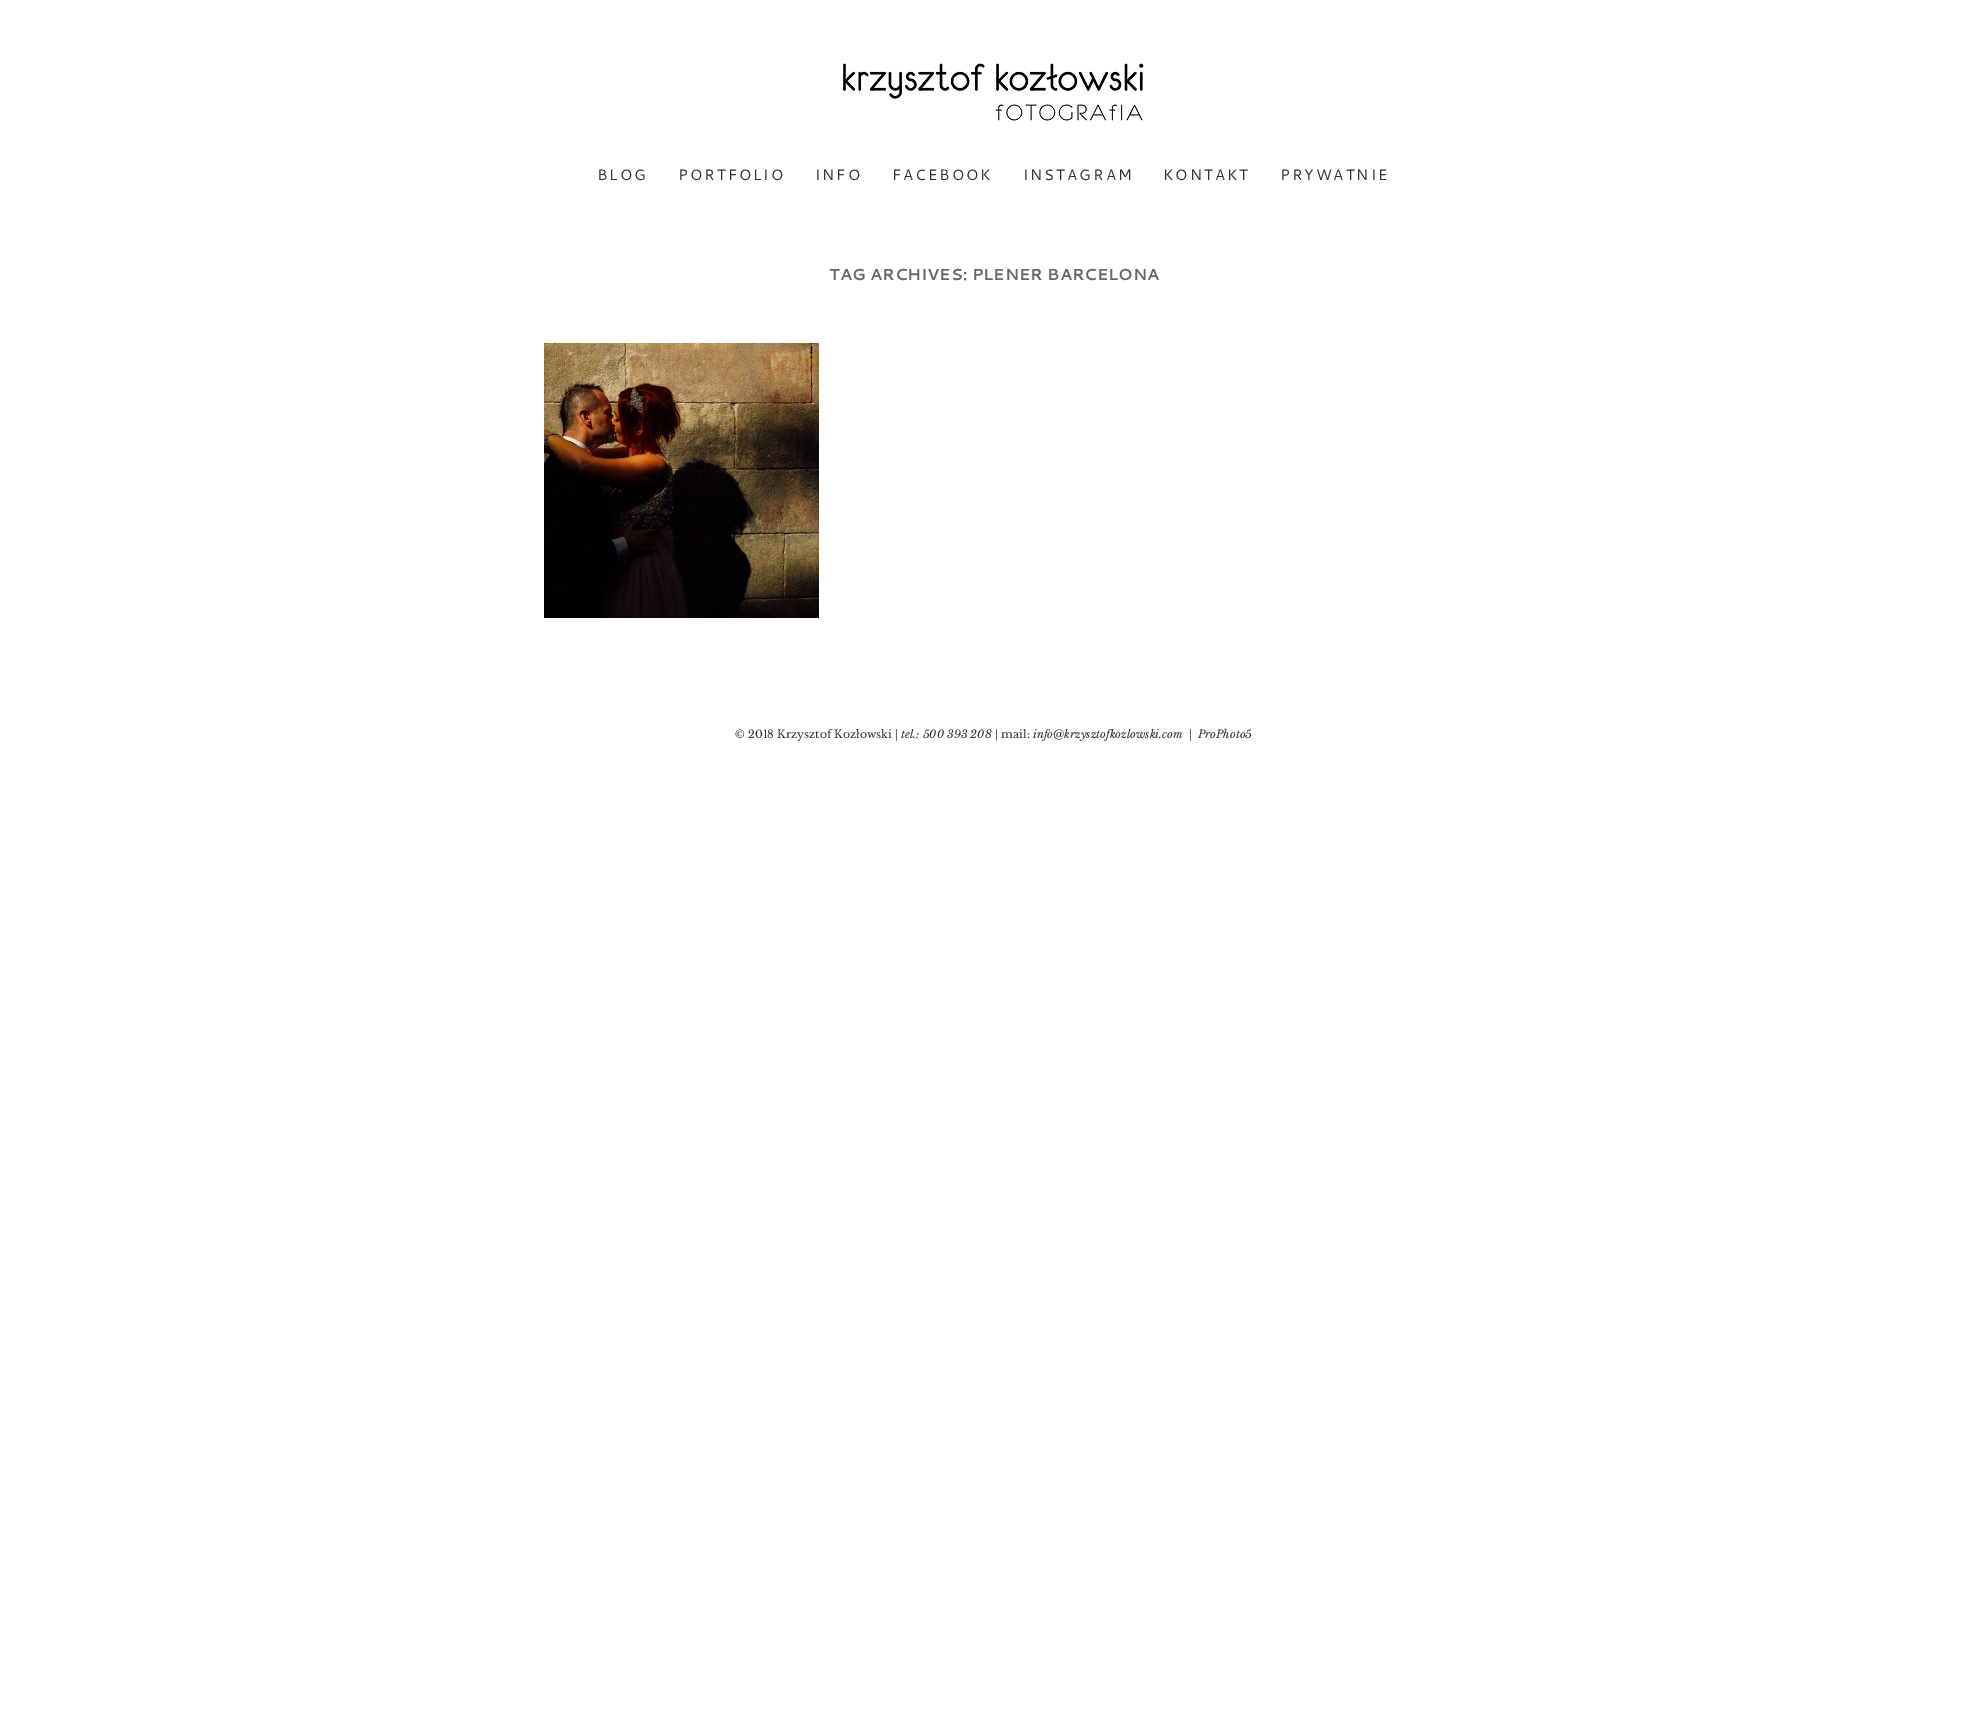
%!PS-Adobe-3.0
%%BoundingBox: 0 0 1987 1728
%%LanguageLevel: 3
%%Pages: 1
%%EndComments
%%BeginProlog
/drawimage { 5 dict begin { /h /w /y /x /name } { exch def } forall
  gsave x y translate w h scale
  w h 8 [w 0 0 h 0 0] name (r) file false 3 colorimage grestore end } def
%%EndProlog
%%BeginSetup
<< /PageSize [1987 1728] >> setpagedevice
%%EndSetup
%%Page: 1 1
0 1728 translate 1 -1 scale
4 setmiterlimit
1 setgray
0 0 1987 1728 rectfill
(images/1.raw) 843 63 301 58 drawimage
(images/2.raw) 544 343 275 275 drawimage
/Cantarell-Regular [15 0 0 -15 0 0] selectfont
0.184 0.184 0.176 setrgbcolor
597 180 moveto 2 0 (BLOG) ashow
678 180 moveto 2 0 (PORTFOLIO) ashow
815 180 moveto 2 0 (INFO) ashow
892 180 moveto 2 0 (FACEBOOK) ashow
1023 180 moveto 2 0 (INSTAGRAM) ashow
1163 180 moveto 2 0 (KONTAKT) ashow
1280 180 moveto 2 0 (PRYWATNIE) ashow
/Cantarell-Bold [16 0 0 -16 0 0] selectfont
0.4 setgray
829 280 moveto (TAG ARCHIVES: PLENER BARCELONA) show
/LibreBaskerville-Regular [11 0 0 -11 0 0] selectfont
0.184 0.184 0.176 setrgbcolor
735 738 moveto (© 2018 Krzysztof Kozłowski |) show
/LibreBaskerville-Italic [11 0 0 -11 0 0] selectfont
901 738 moveto (tel.: 500 393 208) show
/LibreBaskerville-Regular [11 0 0 -11 0 0] selectfont
995 738 moveto (| mail:) show
/LibreBaskerville-Italic [11 0 0 -11 0 0] selectfont
1033 738 moveto (info@krzysztofkozlowski.com) show
/LibreBaskerville-Regular [11 0 0 -11 0 0] selectfont
1189 738 moveto (|) show
/LibreBaskerville-Italic [11 0 0 -11 0 0] selectfont
1198 738 moveto (ProPhoto5) show
showpage
%%EOF
